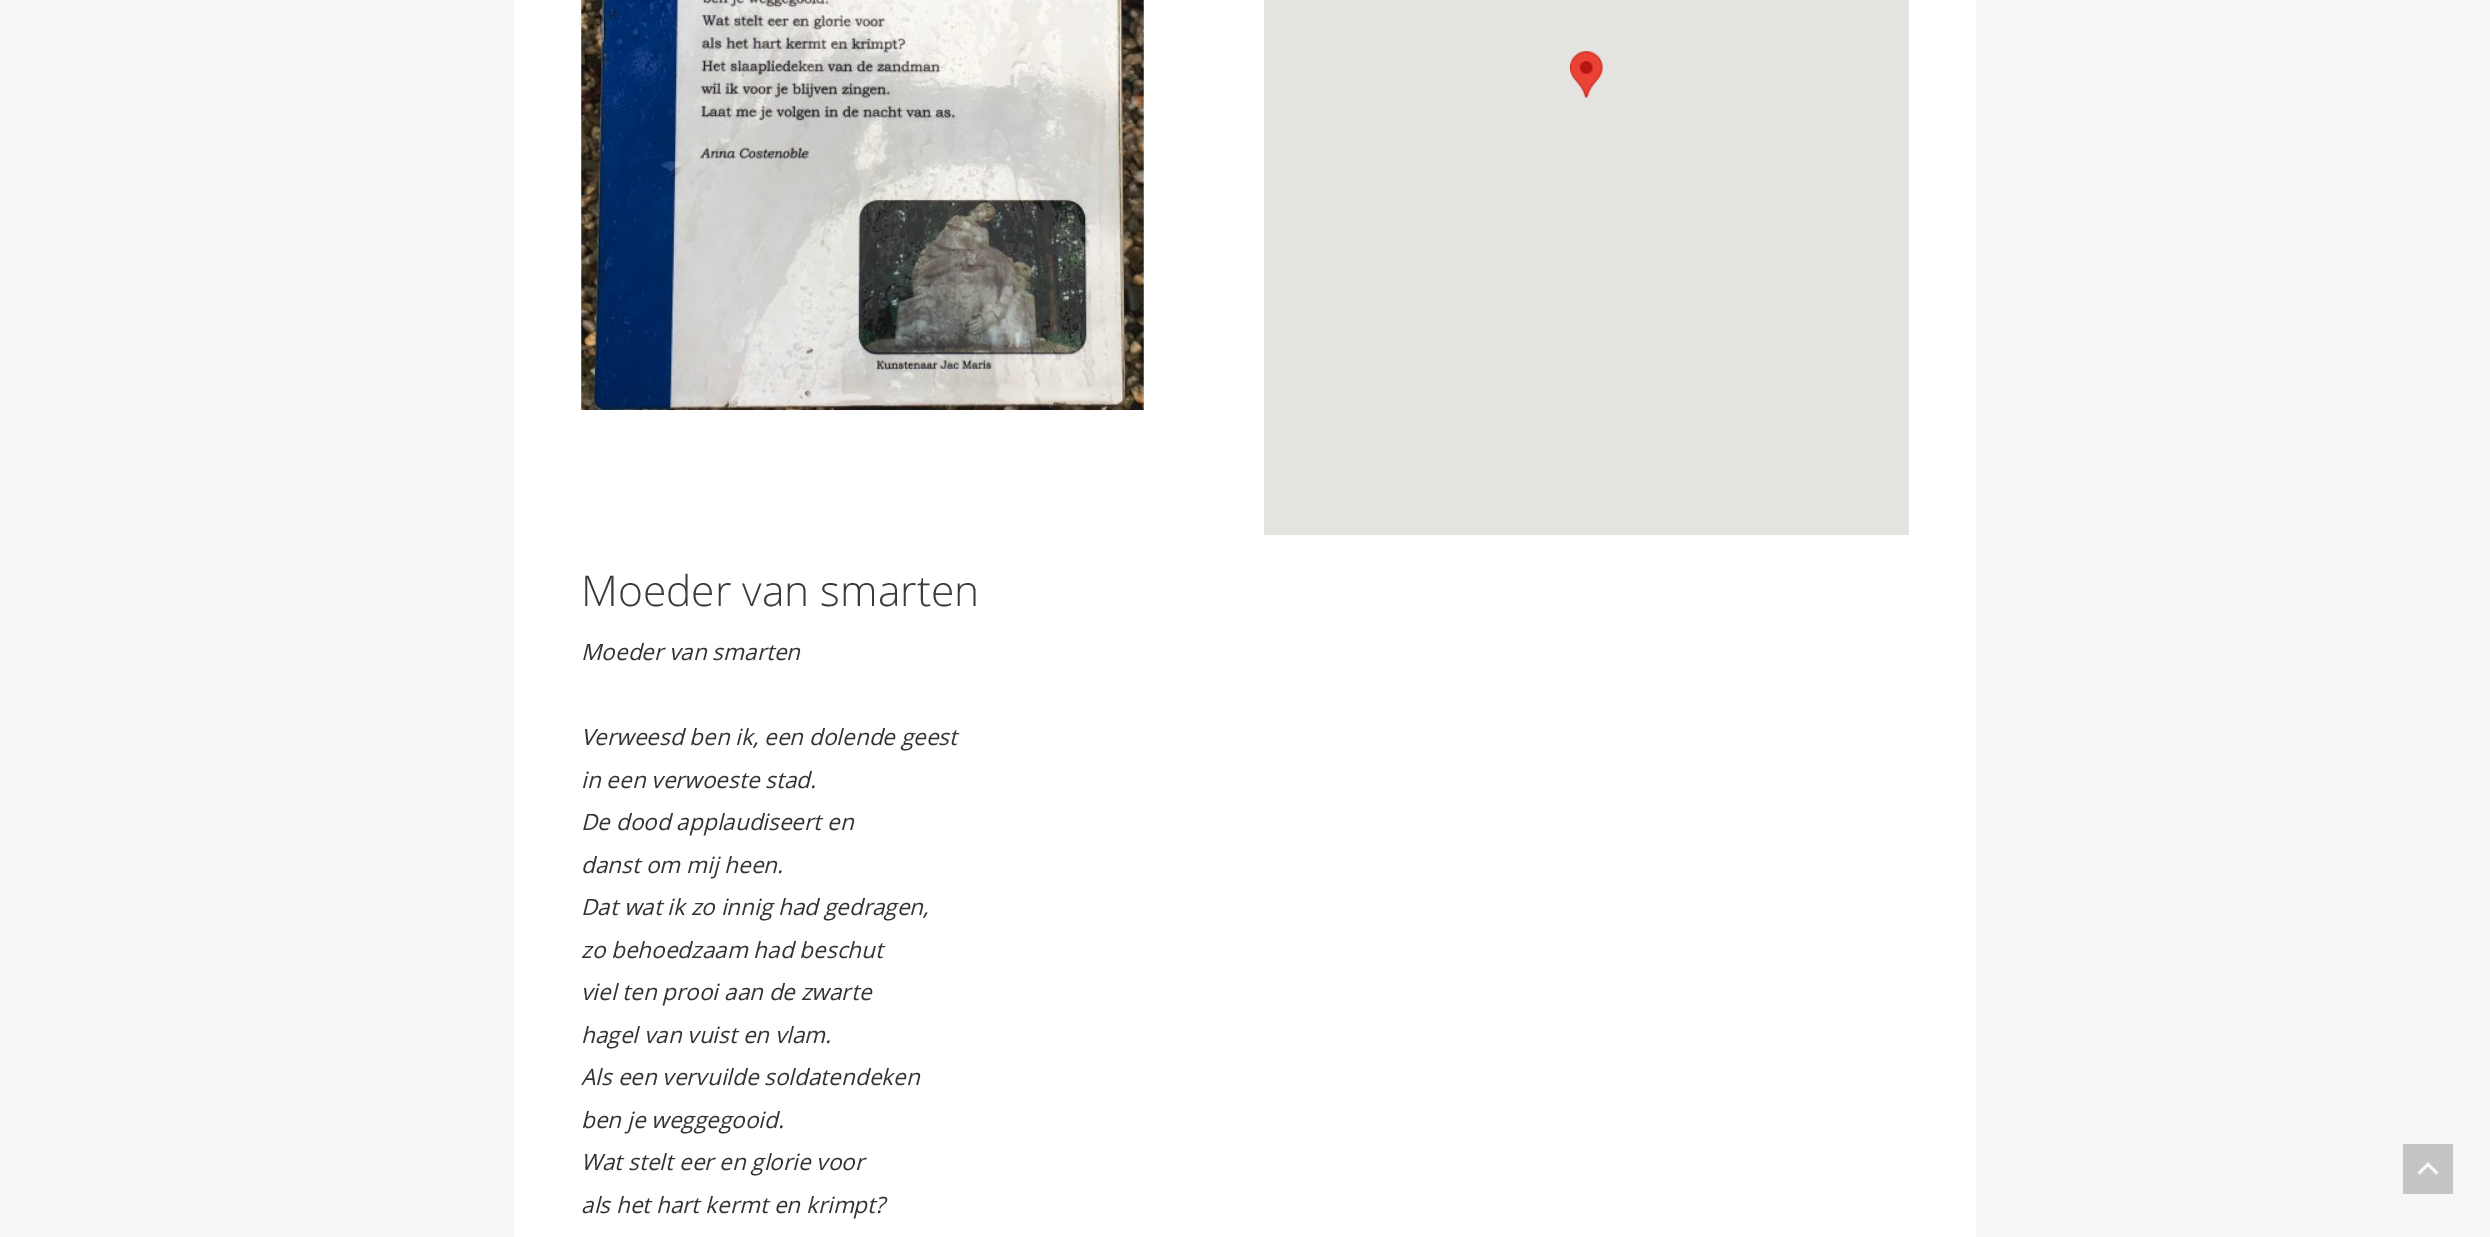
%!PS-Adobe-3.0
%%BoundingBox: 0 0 2490 1237
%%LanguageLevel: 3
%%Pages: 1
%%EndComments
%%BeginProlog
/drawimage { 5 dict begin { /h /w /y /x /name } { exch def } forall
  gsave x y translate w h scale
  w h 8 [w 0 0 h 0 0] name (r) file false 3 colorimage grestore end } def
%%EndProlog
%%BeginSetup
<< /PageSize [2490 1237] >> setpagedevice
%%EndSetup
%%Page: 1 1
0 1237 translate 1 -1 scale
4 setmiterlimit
0.965 setgray
0 0 2490 1237 rectfill
1 setgray
514 0 1462 1237 rectfill
(images/1.raw) 581 0 563 410 drawimage
0.898 0.89 0.875 setrgbcolor
1264 0 645 535 rectfill
(images/2.raw) 1570 51 33 47 drawimage
0.773 setgray
2403 1144 50 50 rectfill
0.973 setgray
newpath 2430 1164.5 moveto 2438.5 1172.5 lineto 2436 1174.5 lineto 2428 1166.5 lineto 2420 1174.5 lineto 2417.5 1172.5 lineto 2428 1162 lineto closepath fill
/OpenSans-Light [42.5 0 0 -42.5 0 0] selectfont
0.231 setgray
581 606 moveto (Moeder van smarten) show
/OpenSans-Italic [22.5 0 0 -22.5 0 0] selectfont
0.2 setgray
581 660 moveto (Moeder van smarten) show
581 745 moveto (Verweesd ben ik, een dolende geest) show
581 788 moveto (in een verwoeste stad.) show
581 830 moveto (De dood applaudiseert en) show
581 873 moveto (danst om mij heen.) show
581 915 moveto (Dat wat ik zo innig had gedragen,) show
581 958 moveto (zo behoedzaam had beschut) show
581 1000 moveto (viel ten prooi aan de zwarte) show
581 1043 moveto (hagel van vuist en vlam.) show
581 1085 moveto (Als een vervuilde soldatendeken) show
581 1128 moveto (ben je weggegooid.) show
581 1170 moveto (Wat stelt eer en glorie voor) show
581 1213 moveto (als het hart kermt en krimpt?) show
showpage
%%EOF
